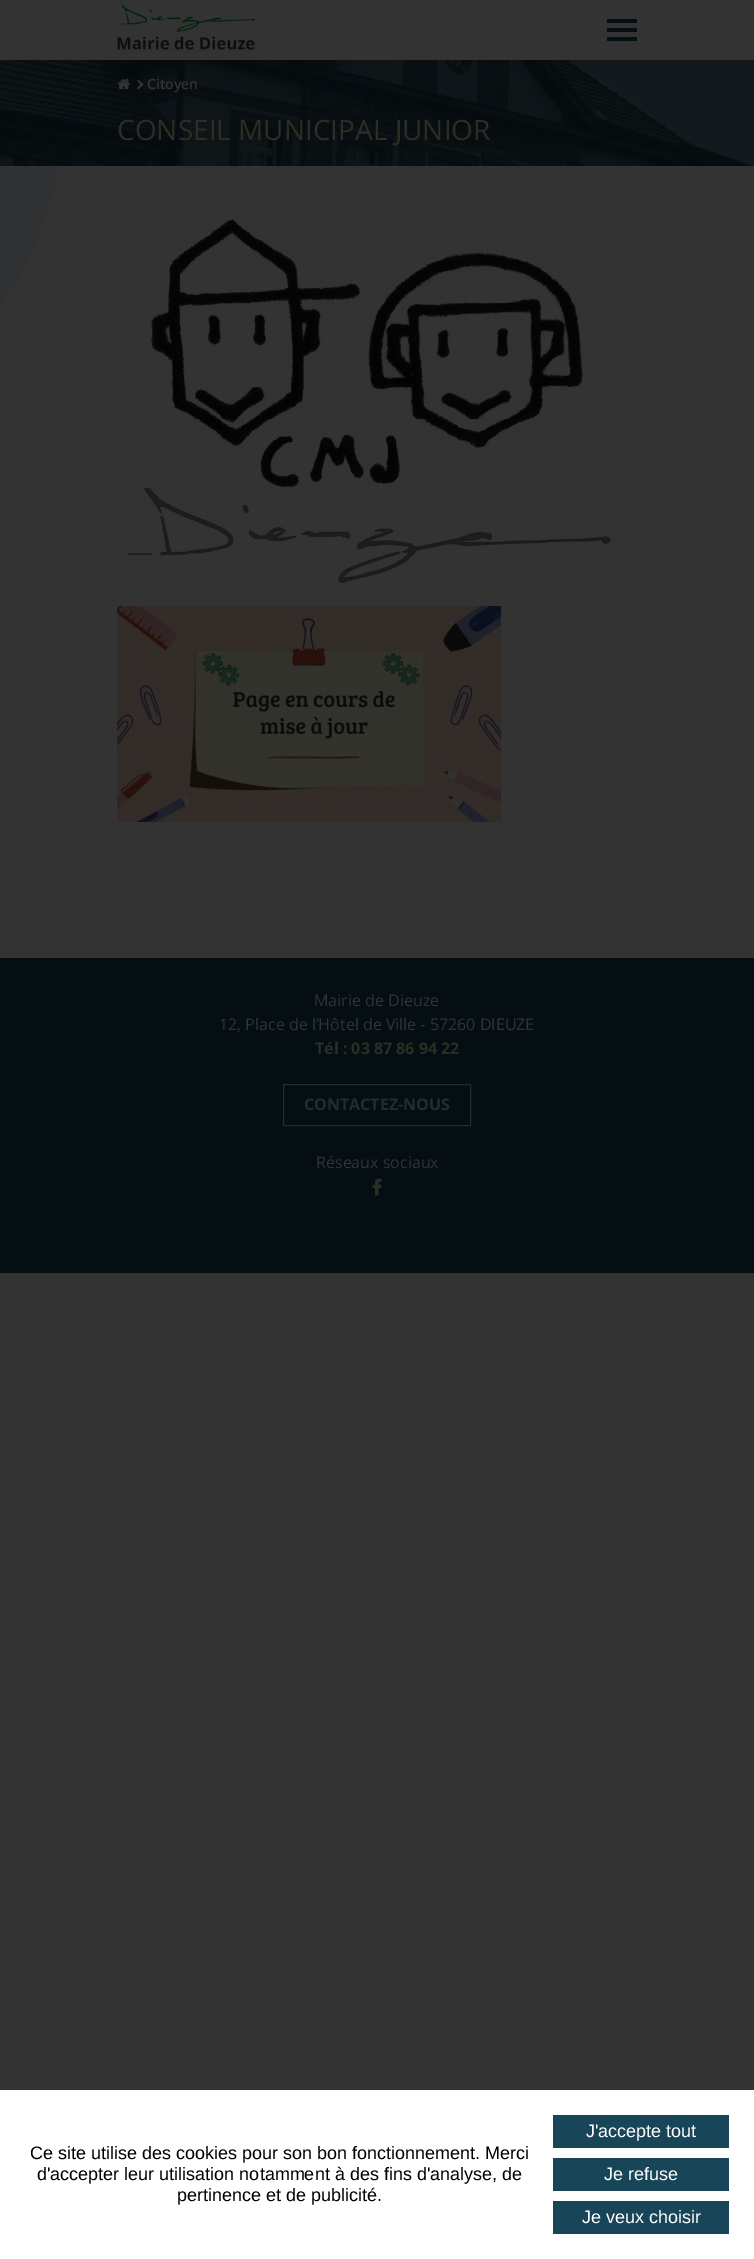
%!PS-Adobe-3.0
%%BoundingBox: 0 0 754 2259
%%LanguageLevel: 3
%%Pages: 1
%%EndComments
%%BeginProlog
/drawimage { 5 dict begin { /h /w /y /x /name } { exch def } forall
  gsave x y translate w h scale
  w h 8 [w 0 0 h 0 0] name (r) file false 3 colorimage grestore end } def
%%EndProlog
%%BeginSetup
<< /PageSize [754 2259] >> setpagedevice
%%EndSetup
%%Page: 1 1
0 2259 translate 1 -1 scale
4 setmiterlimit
0.2 setgray
0 0 754 2259 rectfill
(images/1.raw) 116 5 141 46 drawimage
0.02 0.055 0.071 setrgbcolor
607 19 30 4 rectfill
607 28 30 4 rectfill
607 37 30 4 rectfill
0 60 754 106 rectfill
(images/2.raw) 0 60 754 106 drawimage
(images/3.raw) 117 78 13 12 drawimage
0.2 setgray
newpath 138.5 79.5 moveto 143.5 84.5 lineto 142 86 lineto 137 81 lineto closepath fill
newpath 142 83 moveto 143.5 84.5 lineto 138.5 89.5 lineto 137 88 lineto closepath fill
(images/4.raw) 0 166 59 141 drawimage
(images/5.raw) 126 215 486 368 drawimage
(images/6.raw) 117 606 384 216 drawimage
0.02 0.055 0.071 setrgbcolor
0 958 754 315 rectfill
0.137 0.173 0.188 setrgbcolor
283.5 1084.5 187 41 rectstroke
(images/7.raw) 372 1178 10 18 drawimage
1 setgray
0 2090 754 169 rectfill
0.098 0.271 0.349 setrgbcolor
553 2115 176 33 rectfill
553 2158 176 33 rectfill
553 2201 176 33 rectfill
/OpenSans-SemiBold [14 0 0 -14 0 0] selectfont
0.2 setgray
147 89 moveto (Citoyen) show
/OpenSans-Regular [28 0 0 -28 0 0] selectfont
0.169 0.184 0.137 setrgbcolor
117 140 moveto (CONSEIL MUNICIPAL JUNIOR) show
/OpenSans-Regular [16 0 0 -16 0 0] selectfont
0.2 setgray
314 1006 moveto (Mairie de Dieuze) show
219 1030 moveto (12, Place de l’Hôtel de Ville - 57260 DIEUZE) show
/OpenSans-Bold [16 0 0 -16 0 0] selectfont
0.169 0.184 0.137 setrgbcolor
315 1054 moveto (Tél : 03 87 86 94 22) show
0.137 0.173 0.188 setrgbcolor
304 1110 moveto (CONTACTEZ-NOUS) show
/OpenSans-Regular [16 0 0 -16 0 0] selectfont
0.2 setgray
316 1168 moveto (Réseaux sociaux) show
/LiberationSans-Regular [18 0 0 -18 0 0] selectfont
0 setgray
30 2159 moveto (Ce site utilise des cookies pour son bon fonctionnement. Merci) show
37 2180 moveto (d'accepter leur utilisation notamment à des fins d'analyse, de) show
177 2201 moveto (pertinence et de publicité.) show
1 setgray
586 2137 moveto (J'accepte tout) show
604 2180 moveto (Je refuse) show
582 2223 moveto (Je veux choisir) show
showpage
%%EOF
